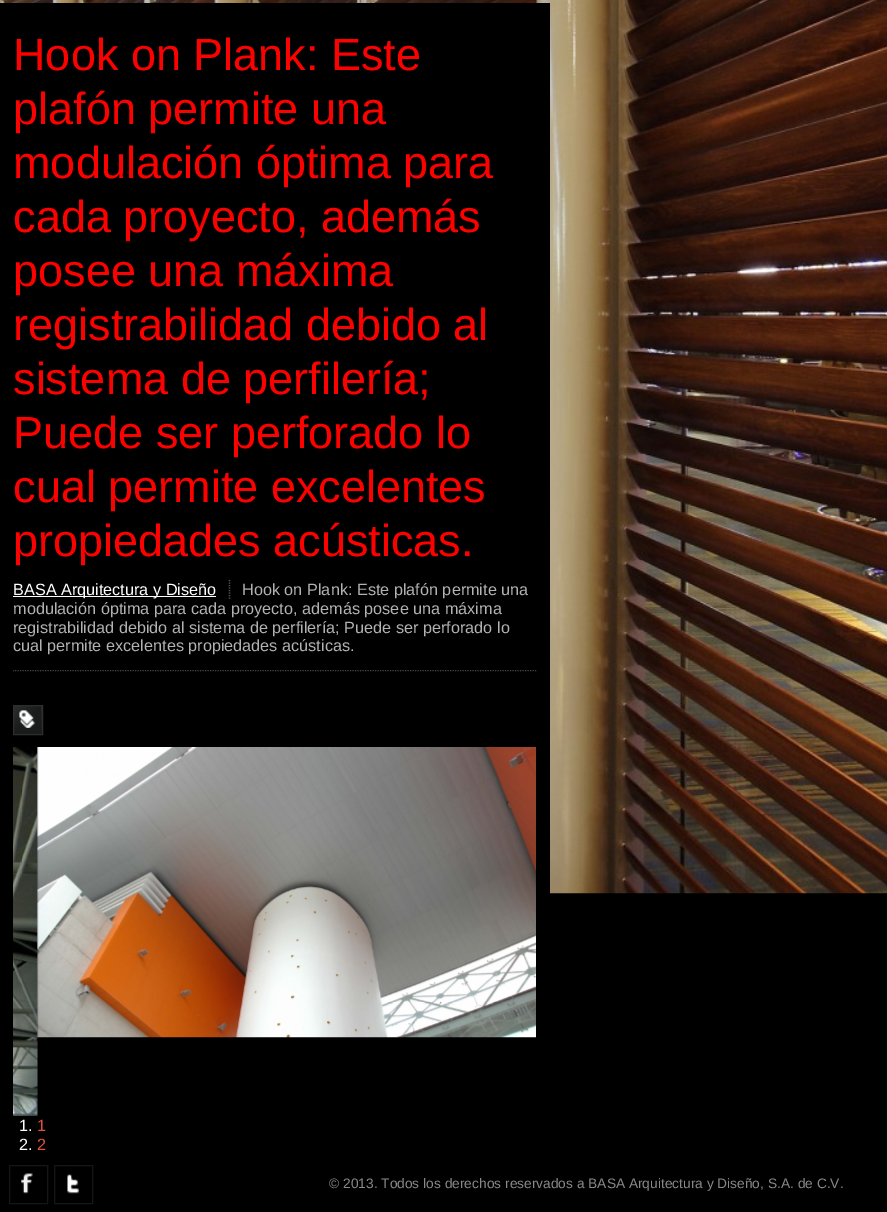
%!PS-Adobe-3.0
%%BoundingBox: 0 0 887 1212
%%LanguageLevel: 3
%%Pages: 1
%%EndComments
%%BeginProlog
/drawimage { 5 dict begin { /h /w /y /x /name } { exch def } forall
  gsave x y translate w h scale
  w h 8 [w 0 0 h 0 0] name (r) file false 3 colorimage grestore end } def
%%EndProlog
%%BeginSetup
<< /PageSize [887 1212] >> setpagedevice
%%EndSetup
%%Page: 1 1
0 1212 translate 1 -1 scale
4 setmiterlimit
0 setgray
0 0 887 1212 rectfill
(images/1.raw) 0 0 887 894 drawimage
0 3 550 891 rectfill
(images/2.raw) 12 287 1 22 drawimage
0.345 0.345 0.341 setrgbcolor
1.2 setlinewidth
[1.25 1.25] 0 setdash
newpath 229.5 580 moveto 229.5 599 lineto stroke
1 setgray
13 596 203 1 rectfill
gsave
13 670 525 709 rectclip
0.282 0.282 0.29 setrgbcolor
newpath 12.5 670.5 moveto 537.5 670.5 lineto stroke
grestore
gsave newpath 14 706 moveto 41 706 lineto 41 734 lineto 14 734 lineto closepath clip newpath
<< /ShadingType 2 /ColorSpace /DeviceRGB /Coords [14 706 41 734] /Extend [true true] /Function << /FunctionType 3 /Domain [0 1] /Functions [<< /FunctionType 2 /Domain [0 1] /C0 [0.176 0.184 0.176] /C1 [0.102 0.11 0.106] /N 1 >> << /FunctionType 2 /Domain [0 1] /C0 [0.102 0.11 0.106] /C1 [0.102 0.11 0.106] /N 1 >>] /Bounds [0.49] /Encode [0 1 0 1] >> >> shfill grestore
gsave newpath 41 706 moveto 42 706 lineto 42 734 lineto 41 734 lineto closepath clip newpath
<< /ShadingType 2 /ColorSpace /DeviceRGB /Coords [41 706 69 734] /Extend [true true] /Function << /FunctionType 3 /Domain [0 1] /Functions [<< /FunctionType 2 /Domain [0 1] /C0 [0.176 0.184 0.176] /C1 [0.102 0.11 0.106] /N 1 >> << /FunctionType 2 /Domain [0 1] /C0 [0.102 0.11 0.106] /C1 [0.102 0.11 0.106] /N 1 >>] /Bounds [0.49] /Encode [0 1 0 1] >> >> shfill grestore
0.176 0.184 0.176 setrgbcolor
1 setlinewidth
[] 0 setdash
13.5 705.5 29 29 rectstroke
(images/3.raw) 19 710 16 18 drawimage
(images/4.raw) 13 747 25 369 drawimage
(images/5.raw) 37 747 499 291 drawimage
0.082 0.09 0.086 setrgbcolor
9.5 1165.5 38 38 rectstroke
(images/6.raw) 21 1173 12 21 drawimage
54.5 1165.5 38 38 rectstroke
(images/7.raw) 67 1174 13 20 drawimage
/LiberationSans-Regular [45 0 0 -45 0 0] selectfont
1 0 0 setrgbcolor
13 70 moveto (Hook on Plank: Este) show
13 124 moveto (plafón permite una) show
13 178 moveto (modulación óptima para) show
13 232 moveto (cada proyecto, además) show
13 286 moveto (posee una máxima) show
13 340 moveto (registrabilidad debido al) show
13 394 moveto (sistema de perfilería;) show
13 448 moveto (Puede ser perforado lo) show
13 502 moveto (cual permite excelentes) show
13 556 moveto (propiedades acústicas.) show
/LiberationSans-Regular [16.25 0 0 -16.25 0 0] selectfont
1 setgray
13 595 moveto (BASA Arquitectura y Diseño) show
0.698 setgray
242 595 moveto (Hook on Plank: Este plafón permite una) show
13 614 moveto (modulación óptima para cada proyecto, además posee una máxima) show
13 633 moveto (registrabilidad debido al sistema de perfilería; Puede ser perforado lo) show
13 651 moveto (cual permite excelentes propiedades acústicas.) show
1 setgray
19 1131 moveto (1.) show
0.882 0.322 0.239 setrgbcolor
37 1131 moveto (1) show
1 setgray
19 1150 moveto (2.) show
0.882 0.322 0.239 setrgbcolor
37 1150 moveto (2) show
/LiberationSans-Regular [13.75 0 0 -13.75 0 0] selectfont
0.537 0.537 0.541 setrgbcolor
329 1188 moveto (© 2013. Todos los derechos reservados a BASA Arquitectura y Diseño, S.A. de C.V.) show
showpage
%%EOF
